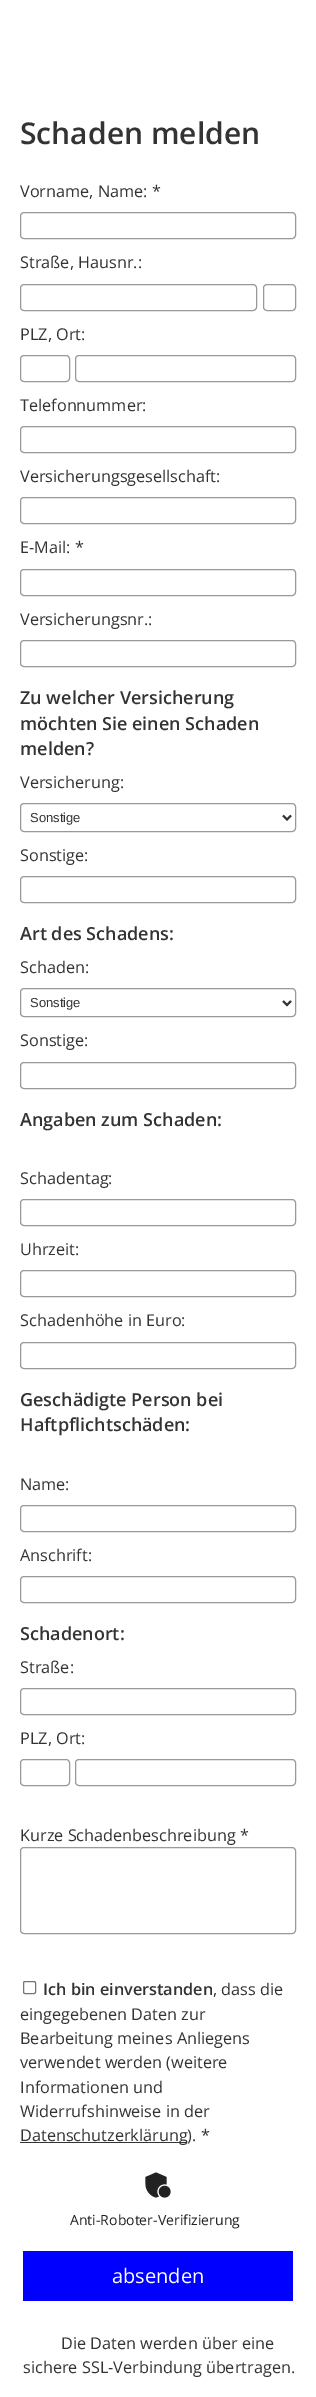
%!PS-Adobe-3.0
%%BoundingBox: 0 0 316 2397
%%LanguageLevel: 3
%%Pages: 1
%%EndComments
%%BeginProlog
/rrect { 5 dict begin { /r /h /w /y /x } { exch def } forall
  x r add y moveto x w add y 2 copy h add r arct x w add y h add x 1 index r arct
  x y h add x y r arct x y 2 copy exch w add exch r arct closepath end } def
/drawimage { 5 dict begin { /h /w /y /x /name } { exch def } forall
  gsave x y translate w h scale
  w h 8 [w 0 0 h 0 0] name (r) file false 3 colorimage grestore end } def
%%EndProlog
%%BeginSetup
<< /PageSize [316 2397] >> setpagedevice
%%EndSetup
%%Page: 1 1
0 2397 translate 1 -1 scale
4 setmiterlimit
1 setgray
0 0 316 2397 rectfill
0.6 setgray
20.5 212.5 275 26 3.5 rrect stroke
20.5 284.5 236 26 3.5 rrect stroke
263.5 284.5 32 26 3.5 rrect stroke
20.5 355.5 49 26 3.5 rrect stroke
75.5 355.5 220 26 3.5 rrect stroke
20.5 426.5 275 26 3.5 rrect stroke
20.5 497.5 275 26 3.5 rrect stroke
20.5 569.5 275 26 3.5 rrect stroke
20.5 640.5 275 26 3.5 rrect stroke
20.5 803.5 275 28 3.5 rrect stroke
0.2 setgray
2 setlinewidth
newpath 283 815.5 moveto 287 819.5 lineto 291 815.5 lineto stroke
0.6 setgray
1 setlinewidth
20.5 876.5 275 26 3.5 rrect stroke
20.5 988.5 275 28 3.5 rrect stroke
0.2 setgray
2 setlinewidth
newpath 283 1001 moveto 287 1005 lineto 291 1001 lineto stroke
0.6 setgray
1 setlinewidth
20.5 1062.5 275 26 3.5 rrect stroke
20.5 1199.5 275 26 3.5 rrect stroke
20.5 1270.5 275 26 3.5 rrect stroke
20.5 1342.5 275 26 3.5 rrect stroke
20.5 1505.5 275 26 3.5 rrect stroke
20.5 1576.5 275 26 3.5 rrect stroke
20.5 1688.5 275 26 3.5 rrect stroke
20.5 1759.5 49 26 3.5 rrect stroke
75.5 1759.5 220 26 3.5 rrect stroke
20.5 1847.5 275 86 3.5 rrect stroke
0.463 setgray
23.5 1981.5 12 12 1.5 rrect stroke
0.2 setgray
20 2142 167 1 rectfill
(images/1.raw) 145 2172 26 26 drawimage
0 0 0.996 setrgbcolor
23 2251 270 50 rectfill
/OpenSans-SemiBold [30 0 0 -30 0 0] selectfont
0.2 setgray
20 144 moveto (Schaden melden) show
/OpenSans-Regular [16.25 0 0 -16.25 0 0] selectfont
20 197 moveto (Vorname, Name: *) show
20 268 moveto (Straße, Hausnr.:) show
20 340 moveto (PLZ, Ort:) show
20 411 moveto (Telefonnummer:) show
20 482 moveto (Versicherungsgesellschaft:) show
20 553 moveto (E-Mail: *) show
20 625 moveto (Versicherungsnr.:) show
/OpenSans-SemiBold [18 0 0 -18 0 0] selectfont
20 704 moveto (Zu welcher Versicherung) show
20 730 moveto (möchten Sie einen Schaden) show
20 755 moveto (melden?) show
/OpenSans-Regular [16.25 0 0 -16.25 0 0] selectfont
20 788 moveto (Versicherung:) show
/LiberationSans-Regular [13 0 0 -13 0 0] selectfont
30 822 moveto (Sonstige) show
/OpenSans-Regular [16.25 0 0 -16.25 0 0] selectfont
20 861 moveto (Sonstige:) show
/OpenSans-SemiBold [18 0 0 -18 0 0] selectfont
20 940 moveto (Art des Schadens:) show
/OpenSans-Regular [16.25 0 0 -16.25 0 0] selectfont
20 973 moveto (Schaden:) show
/LiberationSans-Regular [13 0 0 -13 0 0] selectfont
30 1007 moveto (Sonstige) show
/OpenSans-Regular [16.25 0 0 -16.25 0 0] selectfont
20 1046 moveto (Sonstige:) show
/OpenSans-SemiBold [18 0 0 -18 0 0] selectfont
20 1126 moveto (Angaben zum Schaden:) show
/OpenSans-Regular [16.25 0 0 -16.25 0 0] selectfont
20 1184 moveto (Schadentag:) show
20 1255 moveto (Uhrzeit:) show
20 1326 moveto (Schadenhöhe in Euro:) show
/OpenSans-SemiBold [18 0 0 -18 0 0] selectfont
20 1406 moveto (Geschädigte Person bei) show
20 1431 moveto (Haftpflichtschäden:) show
/OpenSans-Regular [16.25 0 0 -16.25 0 0] selectfont
20 1490 moveto (Name:) show
20 1561 moveto (Anschrift:) show
/OpenSans-SemiBold [18 0 0 -18 0 0] selectfont
20 1640 moveto (Schadenort:) show
/OpenSans-Regular [16.25 0 0 -16.25 0 0] selectfont
20 1673 moveto (Straße:) show
20 1744 moveto (PLZ, Ort:) show
20 1841 moveto (Kurze Schadenbeschreibung *) show
/OpenSans-SemiBold [16.25 0 0 -16.25 0 0] selectfont
43 1995 moveto (Ich bin einverstanden) show
/OpenSans-Regular [16.25 0 0 -16.25 0 0] selectfont
213 1995 moveto (, dass die) show
20 2020 moveto (eingegebenen Daten zur) show
20 2044 moveto (Bearbeitung meines Anliegens) show
20 2068 moveto (verwendet werden \(weitere) show
20 2093 moveto (Informationen und) show
20 2117 moveto (Widerrufshinweise in der) show
20 2141 moveto (Datenschutzerklärung\). *) show
/OpenSans-Regular [14 0 0 -14 0 0] selectfont
0.133 setgray
70 2225 moveto (Anti-Roboter-Verifizierung) show
/OpenSans-Regular [20 0 0 -20 0 0] selectfont
1 setgray
112 2283 moveto (absenden) show
/OpenSans-Regular [16.25 0 0 -16.25 0 0] selectfont
0.2 setgray
61 2349 moveto (Die Daten werden über eine) show
23 2373 moveto (sichere SSL-Verbindung übertragen.) show
showpage
%%EOF
